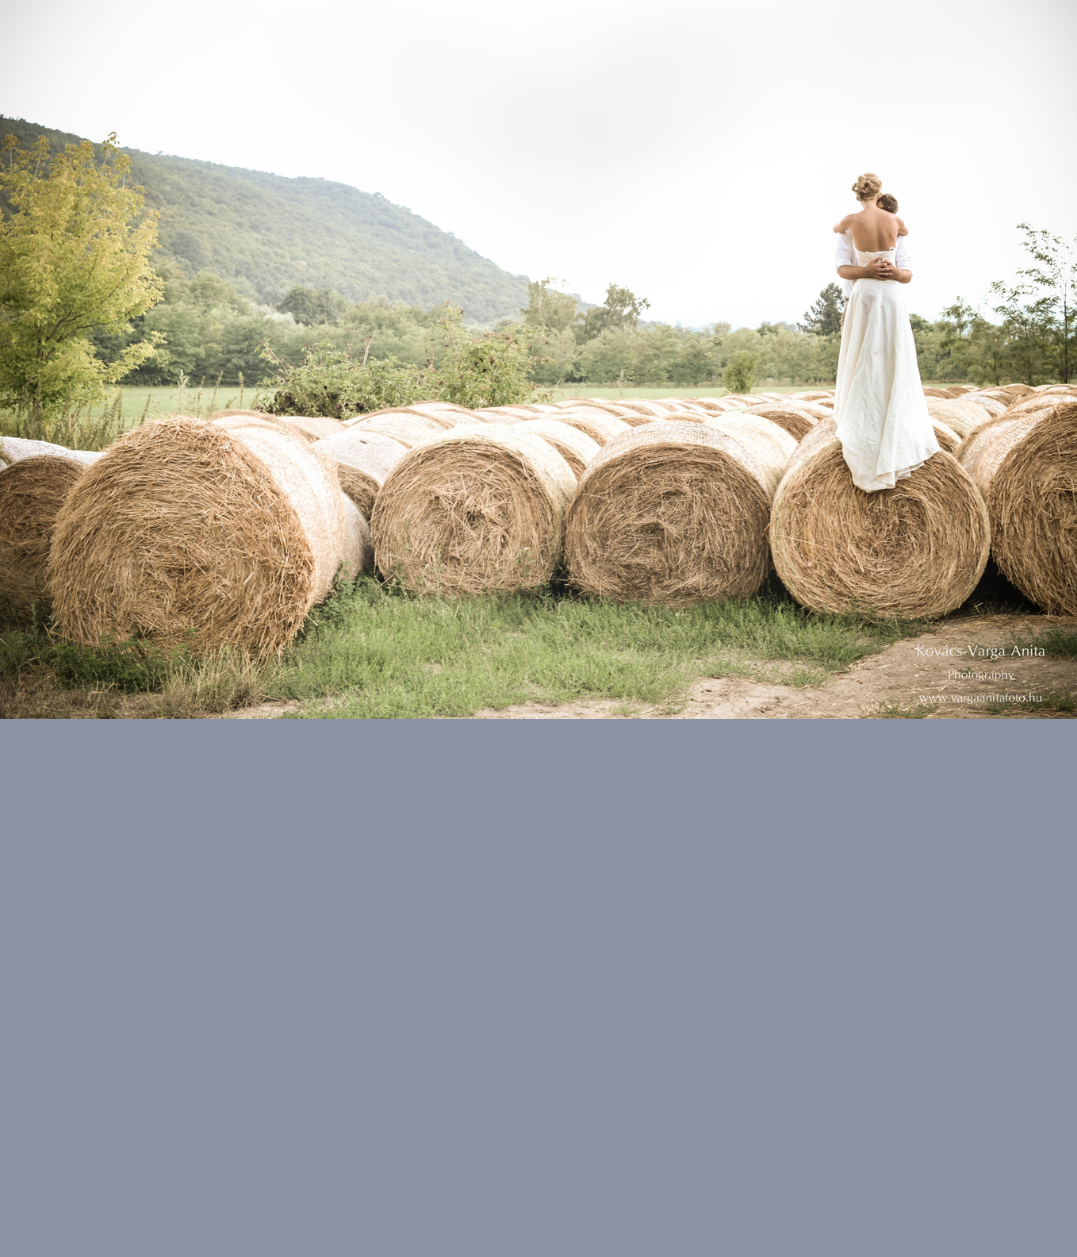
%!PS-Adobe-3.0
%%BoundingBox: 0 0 1077 1257
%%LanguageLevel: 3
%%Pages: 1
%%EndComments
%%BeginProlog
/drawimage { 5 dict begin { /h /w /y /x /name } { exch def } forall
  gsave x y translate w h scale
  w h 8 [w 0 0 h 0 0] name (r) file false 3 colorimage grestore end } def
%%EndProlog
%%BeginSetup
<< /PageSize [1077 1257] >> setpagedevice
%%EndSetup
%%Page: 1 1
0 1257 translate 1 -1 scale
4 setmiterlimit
0.545 0.58 0.647 setrgbcolor
0 0 1077 1257 rectfill
(images/1.raw) 0 0 1077 719 drawimage
showpage
%%EOF
